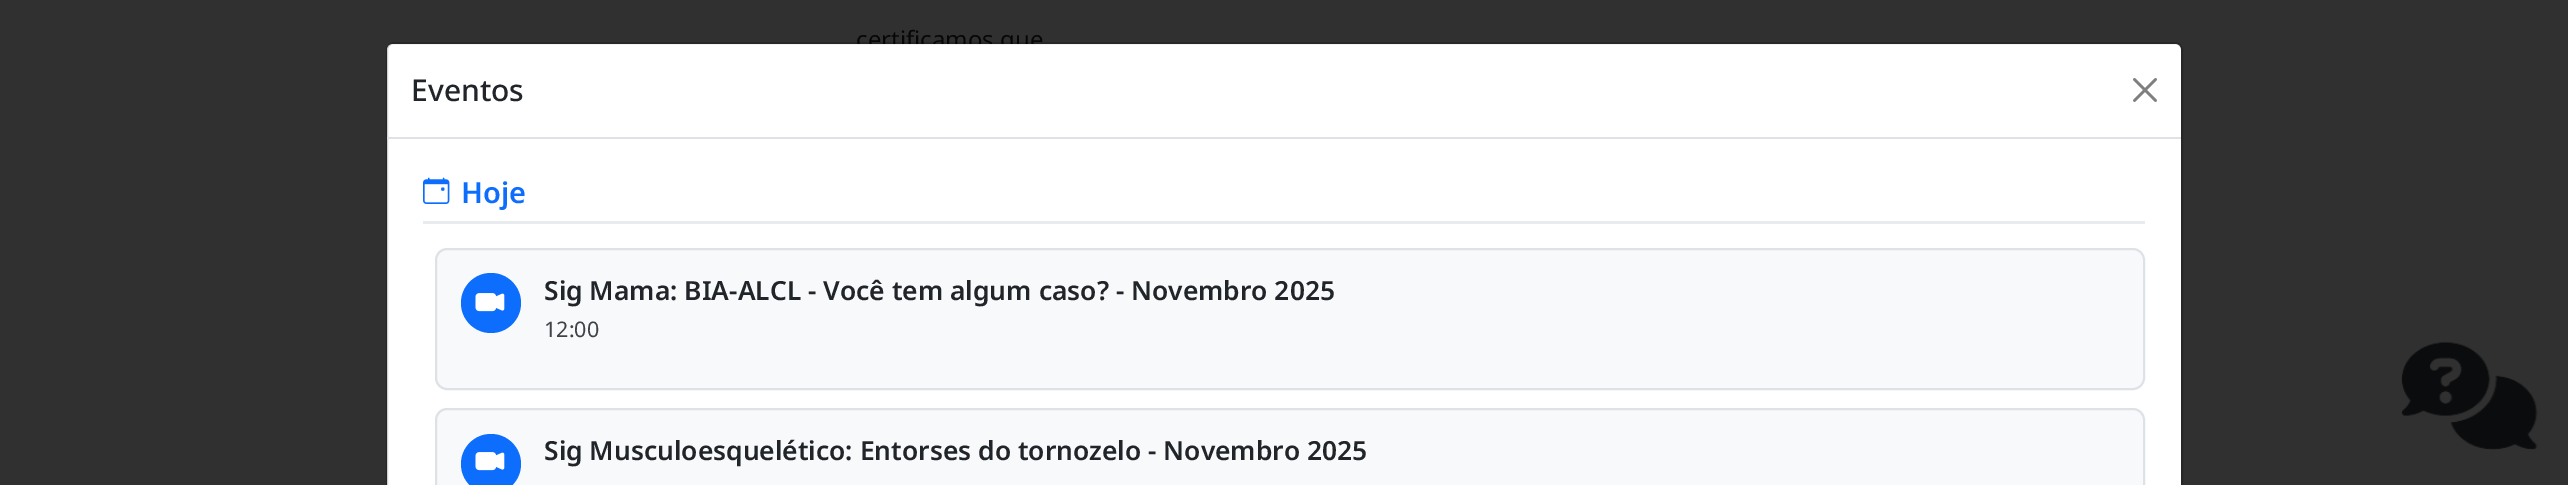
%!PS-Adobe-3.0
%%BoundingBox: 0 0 2568 485
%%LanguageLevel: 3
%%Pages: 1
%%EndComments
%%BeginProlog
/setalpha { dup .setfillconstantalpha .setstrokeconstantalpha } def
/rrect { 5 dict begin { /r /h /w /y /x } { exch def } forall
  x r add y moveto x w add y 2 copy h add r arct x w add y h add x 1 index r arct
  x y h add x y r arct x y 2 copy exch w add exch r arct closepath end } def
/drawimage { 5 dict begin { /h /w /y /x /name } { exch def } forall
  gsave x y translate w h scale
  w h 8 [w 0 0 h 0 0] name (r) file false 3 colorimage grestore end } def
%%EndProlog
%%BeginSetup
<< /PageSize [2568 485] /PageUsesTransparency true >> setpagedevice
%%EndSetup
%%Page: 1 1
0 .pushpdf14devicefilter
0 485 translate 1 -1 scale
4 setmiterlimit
0.188 setgray
0 0 2568 485 rectfill
(images/4.raw) 2401 341 137 109 drawimage
/NotoSans-Regular [24 0 0 -24 0 0] selectfont
0.027 setgray
856 48 moveto (certificamos que) show
1 setgray
newpath 393 44 moveto 2175 44 lineto 2178.5 44 2181 46.5 2181 50 curveto 2181 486 lineto 387 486 lineto 387 50 lineto 387 46.5 389.5 44 393 44 curveto closepath fill
0.18 setalpha
0 setgray
2 setlinewidth
387 43 1795 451 7 rrect stroke
1 setalpha
0.871 0.886 0.902 setrgbcolor
387 137 1794 2 rectfill
/NotoSans-Medium [30 0 0 -30 0 0] selectfont
0.129 0.145 0.161 setrgbcolor
411 101 moveto (Eventos) show
(images/1.raw) 2133 78 24 24 drawimage
0.914 0.925 0.937 setrgbcolor
423 221 1722 3 rectfill
(images/2.raw) 423 177 27 27 drawimage
/NotoSans-SemiBold [29 0 0 -29 0 0] selectfont
0.051 0.431 0.992 setrgbcolor
461 203 moveto (Hoje) show
0.973 0.976 0.98 setrgbcolor
436 249 1708 140 11 rrect gsave fill grestore
0.871 0.886 0.902 setrgbcolor
stroke
0.051 0.431 0.992 setrgbcolor
newpath 491 303 30 0 360 arc closepath fill
(images/3.raw) 475 293 30 19 drawimage
/NotoSans-SemiBold [26.4 0 0 -26.4 0 0] selectfont
0.129 0.145 0.161 setrgbcolor
544 300 moveto (Sig Mama: BIA-ALCL - Você tem algum caso? - Novembro 2025) show
/NotoSans-Regular [21.5 0 0 -21.5 0 0] selectfont
0.239 0.263 0.278 setrgbcolor
544 337 moveto (12:00) show
0.973 0.976 0.98 setrgbcolor
newpath 447 408 moveto 2133 408 lineto 2139.5 408 2145 413.5 2145 420 curveto 2145 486 lineto 435 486 lineto 435 420 lineto 435 413.5 440.5 408 447 408 curveto closepath fill
0.871 0.886 0.902 setrgbcolor
436 409 1708 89 11 rrect stroke
0.051 0.431 0.992 setrgbcolor
newpath 491 464 30 0 360 arc closepath fill
(images/3.raw) 475 452 30 19 drawimage
/NotoSans-SemiBold [26.4 0 0 -26.4 0 0] selectfont
0.129 0.145 0.161 setrgbcolor
544 460 moveto (Sig Musculoesquelético: Entorses do tornozelo - Novembro 2025) show
.poppdf14devicefilter showpage
%%EOF
